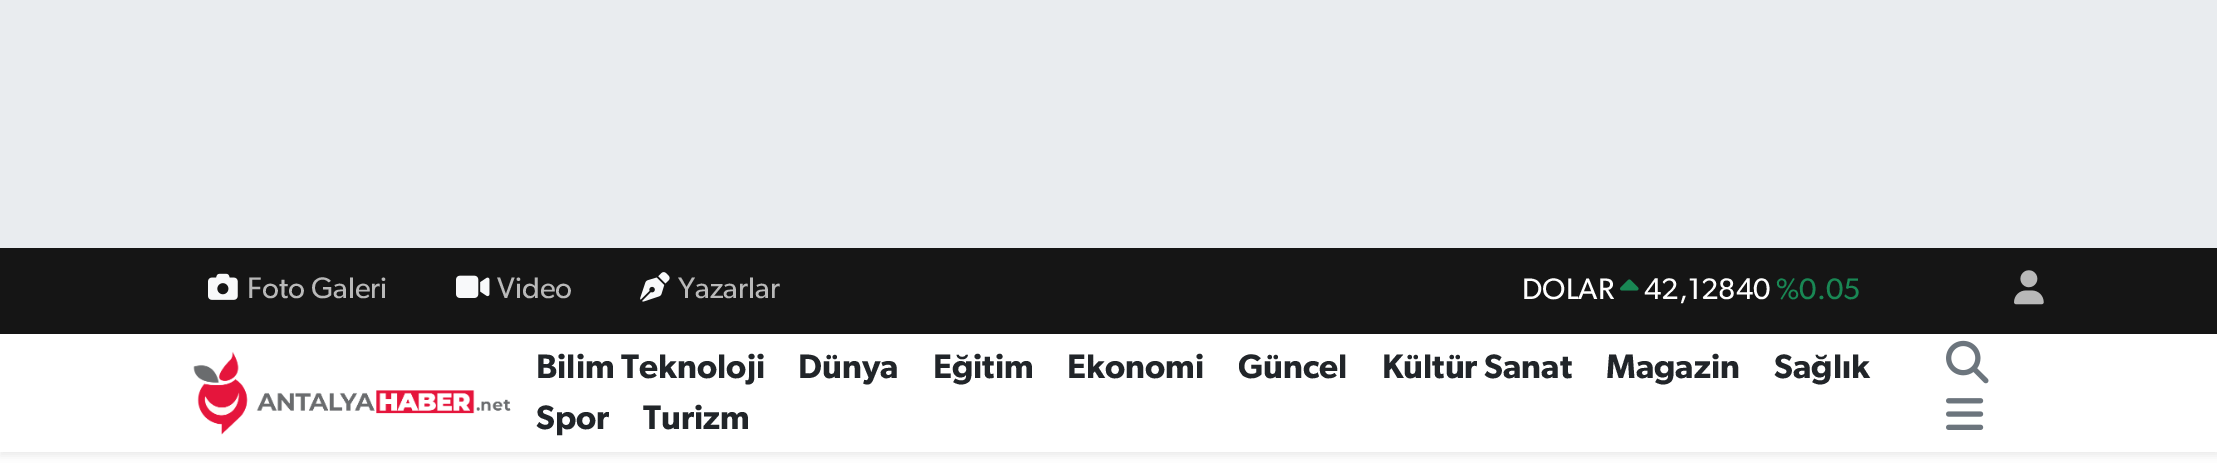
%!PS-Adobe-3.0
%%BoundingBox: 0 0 2217 463
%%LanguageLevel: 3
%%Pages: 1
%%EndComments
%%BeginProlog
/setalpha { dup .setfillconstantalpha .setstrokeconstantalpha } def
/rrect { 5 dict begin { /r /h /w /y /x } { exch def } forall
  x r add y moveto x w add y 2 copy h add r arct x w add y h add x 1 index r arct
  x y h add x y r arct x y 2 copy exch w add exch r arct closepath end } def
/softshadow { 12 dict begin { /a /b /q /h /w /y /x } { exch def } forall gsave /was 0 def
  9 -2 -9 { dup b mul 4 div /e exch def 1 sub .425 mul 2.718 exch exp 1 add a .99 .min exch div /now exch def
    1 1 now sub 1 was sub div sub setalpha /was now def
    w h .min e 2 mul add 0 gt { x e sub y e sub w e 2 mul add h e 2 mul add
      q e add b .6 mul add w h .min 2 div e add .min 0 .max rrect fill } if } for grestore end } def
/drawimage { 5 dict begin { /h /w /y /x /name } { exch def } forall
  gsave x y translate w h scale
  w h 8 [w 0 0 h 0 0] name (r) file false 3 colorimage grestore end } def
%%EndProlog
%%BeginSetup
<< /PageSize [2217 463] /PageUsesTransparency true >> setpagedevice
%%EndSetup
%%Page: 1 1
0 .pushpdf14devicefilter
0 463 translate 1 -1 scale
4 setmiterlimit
0.914 0.925 0.937 setrgbcolor
0 0 2217 463 rectfill
0.082 setgray
0 248 2217 86 rectfill
(images/1.raw) 208 273 30 27 drawimage
(images/2.raw) 456 275 34 23 drawimage
(images/3.raw) 640 272 30 30 drawimage
(images/4.raw) 1620 279 19 12 drawimage
(images/5.raw) 2014 270 30 35 drawimage
1 setgray
0 452 2217 11 rectfill
0 setgray
0 338 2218 118 0 4 0.07 softshadow
1 setgray
0 334 2217 118 rectfill
(images/6.raw) 193 351 318 84 drawimage
(images/7.raw) 1946 340 43 44 drawimage
(images/8.raw) 1946 398 38 32 drawimage
/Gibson-Regular [29.75 0 0 -29.75 0 0] selectfont
0.725 setgray
247 298 moveto (Foto Galeri) show
497 298 moveto (Video) show
678 298 moveto (Yazarlar) show
1 setgray
1522 299 moveto (DOLAR) show
1644 299 moveto (42,12840) show
0.098 0.529 0.329 setrgbcolor
1776 299 moveto (%0.05) show
/Gibson-SemiBold [34 0 0 -34 0 0] selectfont
0.129 0.145 0.161 setrgbcolor
536 378 moveto (Bilim Teknoloji) show
798 378 moveto (Dünya) show
933 378 moveto (Eğitim) show
1067 378 moveto (Ekonomi) show
1238 378 moveto (Güncel) show
1382 378 moveto (Kültür Sanat) show
1606 378 moveto (Magazin) show
1774 378 moveto (Sağlık) show
536 429 moveto (Spor) show
643 429 moveto (Turizm) show
.poppdf14devicefilter showpage
%%EOF
